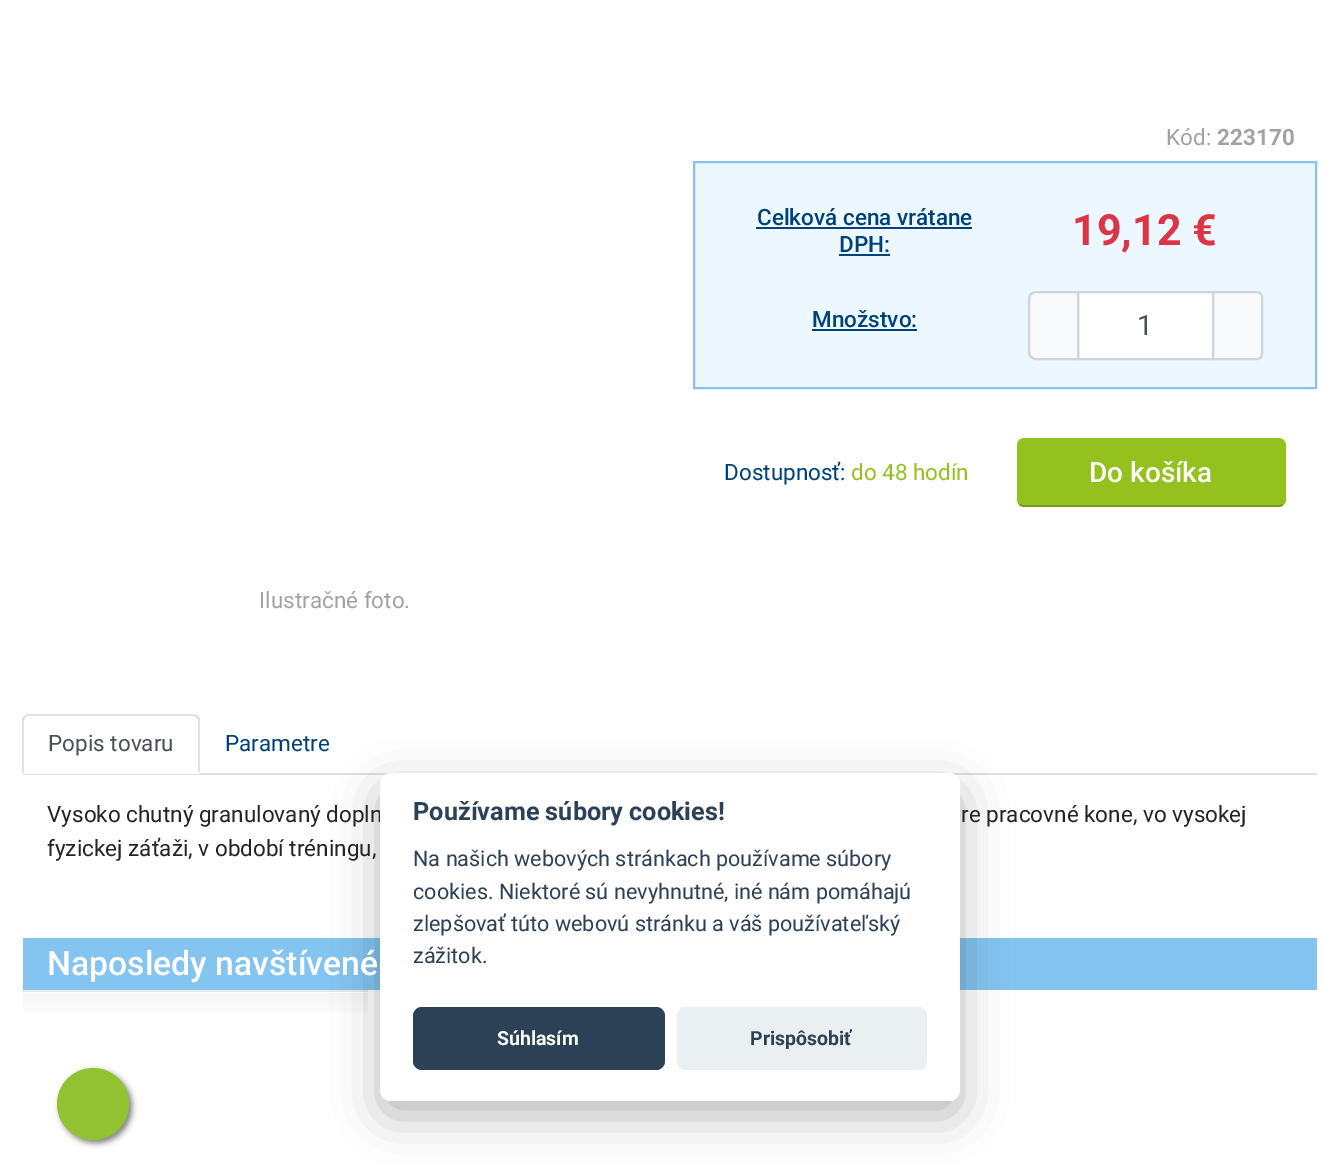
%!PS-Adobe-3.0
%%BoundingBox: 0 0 1339 1176
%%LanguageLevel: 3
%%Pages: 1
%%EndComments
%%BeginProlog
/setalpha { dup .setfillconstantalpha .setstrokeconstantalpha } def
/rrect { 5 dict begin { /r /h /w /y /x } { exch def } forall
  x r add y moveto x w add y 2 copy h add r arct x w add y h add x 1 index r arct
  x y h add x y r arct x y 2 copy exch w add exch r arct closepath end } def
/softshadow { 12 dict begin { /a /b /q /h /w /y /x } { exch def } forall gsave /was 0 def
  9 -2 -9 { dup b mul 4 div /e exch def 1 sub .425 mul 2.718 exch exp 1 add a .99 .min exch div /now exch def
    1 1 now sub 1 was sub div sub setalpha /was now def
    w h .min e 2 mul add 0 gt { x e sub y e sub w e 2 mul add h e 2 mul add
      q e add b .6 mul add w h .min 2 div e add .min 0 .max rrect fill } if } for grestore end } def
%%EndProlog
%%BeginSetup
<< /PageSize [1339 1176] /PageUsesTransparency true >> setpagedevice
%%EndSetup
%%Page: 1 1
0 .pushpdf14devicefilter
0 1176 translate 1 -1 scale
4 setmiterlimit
1 setgray
0 0 1339 1176 rectfill
0.925 0.969 1 setrgbcolor
newpath 694 162 moveto 1316 162 lineto 1316 388 lineto 694 388 lineto closepath gsave fill grestore
0.529 0.765 0.941 setrgbcolor
2 setlinewidth
stroke
0 0.259 0.467 setrgbcolor
756 227 216 2 rectfill
839 254 51 2 rectfill
812 329 105 2 rectfill
1 setgray
newpath 1078 292 moveto 1213 292 lineto 1213 359 lineto 1078 359 lineto closepath gsave fill grestore
0.808 0.831 0.855 setrgbcolor
stroke
0.973 0.976 0.98 setrgbcolor
newpath 1036 292 moveto 1078 292 lineto 1078 359 lineto 1036 359 lineto 1032 359 1029 356 1029 352 curveto 1029 299 lineto 1029 295 1032 292 1036 292 curveto closepath gsave fill grestore
0.808 0.831 0.855 setrgbcolor
stroke
0.973 0.976 0.98 setrgbcolor
newpath 1213 292 moveto 1257 292 lineto 1260 292 1262 294 1262 297 curveto 1262 354 lineto 1262 357 1260 359 1257 359 curveto 1213 359 lineto closepath gsave fill grestore
0.808 0.831 0.855 setrgbcolor
stroke
0.584 0.757 0.122 setrgbcolor
1017 438 269 69 8 rrect fill
0.451 0.584 0.094 setrgbcolor
1.5 setlinewidth
newpath 1283 504.5 moveto 1281.5 505.5 1280 506 1278.5 506 curveto 1024 506 lineto 1022.5 506 1021 505.5 1019.5 504.5 curveto stroke
0.584 0.757 0.122 setrgbcolor
newpath 1019.5 504.5 moveto 1018.5 503 1018 501.5 1018 500 curveto 1018 445 lineto 1018 443.5 1018.5 442 1019.5 440.5 curveto 1021 439.5 1022.5 439 1024 439 curveto 1278.5 439 lineto 1280 439 1281.5 439.5 1283 440.5 curveto 1284 442 1285 443.5 1285 445 curveto 1285 500 lineto 1285 501.5 1284 503 1283 504.5 curveto stroke
0.871 0.886 0.902 setrgbcolor
23 773 1294 2 rectfill
1 setgray
newpath 29 714 moveto 194 714 lineto 197.5 714 200 716.5 200 720 curveto 200 774 lineto 23 774 lineto 23 720 lineto 23 716.5 25.5 714 29 714 curveto closepath fill
0.871 0.886 0.902 setrgbcolor
newpath 28 714 moveto 27 714 25 715 24 716 curveto 26 717 lineto 28 716 lineto 166 716 lineto 194 716 lineto 196 717 lineto 198 716 lineto 197 715 195 714 194 714 curveto closepath fill
newpath 200 718 moveto 200 774 lineto 198 772 lineto 198 720 lineto 196 717 lineto 198 716 lineto closepath fill
1 setgray
newpath 200 774 moveto 198 772 lineto 24 772 lineto 22 774 lineto closepath fill
0.871 0.886 0.902 setrgbcolor
newpath 22 774 moveto 22 718 lineto 24 716 lineto 26 717 lineto 24 720 lineto 24 772 lineto closepath fill
0.518 0.769 0.941 setrgbcolor
23 938 1294 52 rectfill
gsave newpath 23 993 moveto 368 993 lineto 368 1013 lineto 23 1013 lineto closepath clip newpath
<< /ShadingType 2 /ColorSpace /DeviceRGB /Coords [195 992 195 1020] /Extend [true true] /Function << /FunctionType 3 /Domain [0 1] /Functions [<< /FunctionType 2 /Domain [0 1] /C0 [1 1 1] /C1 [1 1 1] /N 1 >> << /FunctionType 2 /Domain [0 1] /C0 [0.961 0.961 0.961] /C1 [1 1 1] /N 1 >>] /Bounds [0.05] /Encode [0 1 0 1] >> >> shfill grestore
0.91 setgray
23 990 345 2 rectfill
0 setgray
60 1071 72 72 36 3 0.5 softshadow
0.573 0.761 0.196 setrgbcolor
newpath 93 1104 36 0 360 arc closepath fill
0.008 0.008 0.012 setrgbcolor
380 788 580 328 11 22.5 0.28 softshadow
/Roboto-Regular [22.5 0 0 -22.5 0 0] selectfont
0.635 setgray
1166 145 moveto (Kód:) show
/Roboto-Bold [22.5 0 0 -22.5 0 0] selectfont
1217 145 moveto (223170) show
/Roboto-Medium [22.5 0 0 -22.5 0 0] selectfont
0 0.259 0.467 setrgbcolor
757 225 moveto (Celková cena vrátane) show
839 252 moveto (DPH:) show
/Roboto-Bold [43 0 0 -43 0 0] selectfont
0.863 0.208 0.271 setrgbcolor
1072 245 moveto (19,12 €) show
/Roboto-Medium [22.5 0 0 -22.5 0 0] selectfont
0 0.259 0.467 setrgbcolor
812 327 moveto (Množstvo:) show
/Roboto-Regular [28 0 0 -28 0 0] selectfont
0.286 0.314 0.341 setrgbcolor
1137 335 moveto (1) show
/Roboto-Regular [22.5 0 0 -22.5 0 0] selectfont
0 0.259 0.467 setrgbcolor
724 480 moveto (Dostupnosť:) show
0.584 0.757 0.122 setrgbcolor
851 480 moveto (do 48 hodín) show
/Roboto-Medium [28 0 0 -28 0 0] selectfont
1 setgray
1089 482 moveto (Do košíka) show
/Roboto-Regular [22.5 0 0 -22.5 0 0] selectfont
0.635 setgray
259 608 moveto (Ilustračné foto.) show
0.286 0.314 0.341 setrgbcolor
48 751 moveto (Popis tovaru) show
0 0.259 0.467 setrgbcolor
225 751 moveto (Parametre) show
0.129 0.145 0.161 setrgbcolor
47 822 moveto (Vysoko chutný granulovaný dopln) show
961 822 moveto (re pracovné kone, vo vysokej) show
47 856 moveto (fyzickej záťaži, v období tréningu,) show
/Roboto-Medium [33.75 0 0 -33.75 0 0] selectfont
1 setgray
47 975 moveto (Naposledy navštívené) show
380 773 580 328 11 rrect fill
/Roboto-Bold [25.25 0 0 -25.25 0 0] selectfont
0.176 0.255 0.337 setrgbcolor
413 820 moveto (Používame súbory cookies!) show
/Roboto-Regular [21.6 0 0 -21.6 0 0] selectfont
413 866 moveto (Na našich webových stránkach používame súbory) show
413 899 moveto (cookies. Niektoré sú nevyhnutné, iné nám pomáhajú) show
413 931 moveto (zlepšovať túto webovú stránku a váš používateľský) show
413 963 moveto (zážitok.) show
413 1007 252 63 9 rrect fill
/Roboto-Bold [19.5 0 0 -19.5 0 0] selectfont
1 setgray
497 1045 moveto (Súhlasím) show
0.918 0.937 0.949 setrgbcolor
677 1007 250 63 9 rrect fill
0.176 0.255 0.337 setrgbcolor
750 1045 moveto (Prispôsobiť) show
.poppdf14devicefilter showpage
%%EOF
